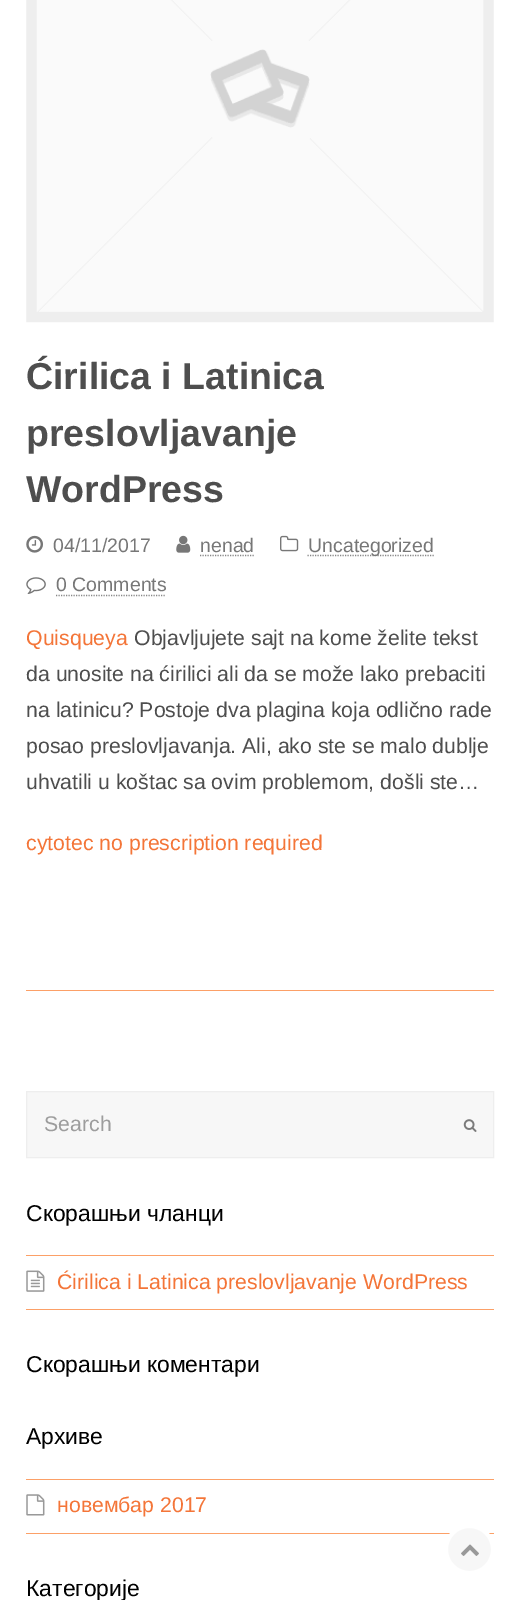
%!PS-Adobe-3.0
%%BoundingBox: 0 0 520 1600
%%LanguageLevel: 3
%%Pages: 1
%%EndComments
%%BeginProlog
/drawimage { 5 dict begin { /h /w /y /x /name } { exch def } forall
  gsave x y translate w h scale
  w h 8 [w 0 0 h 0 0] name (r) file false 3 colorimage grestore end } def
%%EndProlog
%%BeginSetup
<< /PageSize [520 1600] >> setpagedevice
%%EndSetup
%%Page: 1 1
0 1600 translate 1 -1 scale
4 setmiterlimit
1 setgray
0 0 520 1600 rectfill
0.988 0.627 0.404 setrgbcolor
26 990 468 1 rectfill
(images/1.raw) 26 0 468 323 drawimage
(images/2.raw) 26 535 17 18 drawimage
(images/3.raw) 176 535 15 18 drawimage
0.533 setgray
1.2 setlinewidth
[1.25 1.25] 0 setdash
newpath 200 555.5 moveto 255 555.5 lineto stroke
(images/4.raw) 280 535 19 17 drawimage
newpath 307.5 555.5 moveto 434 555.5 lineto stroke
(images/5.raw) 26 577 20 17 drawimage
newpath 56 595.5 moveto 166 595.5 lineto stroke
0.969 setgray
newpath 26.5 1091.5 moveto 493.5 1091.5 lineto 493.5 1157.5 lineto 26.5 1157.5 lineto closepath gsave fill grestore
0.933 setgray
1 setlinewidth
[] 0 setdash
stroke
(images/6.raw) 463 1119 14 13 drawimage
0.988 0.627 0.404 setrgbcolor
26 1255 468 1 rectfill
26 1309 468 1 rectfill
(images/7.raw) 26 1270 19 22 drawimage
26 1479 468 1 rectfill
26 1533 468 1 rectfill
(images/8.raw) 26 1494 19 22 drawimage
0.969 setgray
newpath 469.5 1549.5 23.5 0 360 arc closepath gsave fill grestore
1 setgray
4 setlinewidth
stroke
(images/9.raw) 461 1544 18 12 drawimage
/LiberationSans-Bold [37.5 0 0 -37.5 0 0] selectfont
0.306 setgray
26 389 moveto (Ćirilica i Latinica) show
26 446 moveto (preslovljavanje) show
26 502 moveto (WordPress) show
/LiberationSans-Regular [19.5 0 0 -19.5 0 0] selectfont
0.467 setgray
53 552 moveto (04/11/2017) show
200 552 moveto (nenad) show
308 552 moveto (Uncategorized) show
56 591 moveto (0 Comments) show
/LiberationSans-Regular [21.25 0 0 -21.25 0 0] selectfont
0.957 0.459 0.22 setrgbcolor
26 645 moveto (Quisqueya) show
0.306 setgray
134 645 moveto (Objavljujete sajt na kome želite tekst) show
26 681 moveto (da unosite na ćirilici ali da se može lako prebaciti) show
26 717 moveto (na latinicu? Postoje dva plagina koja odlično rade) show
26 753 moveto (posao preslovljavanja. Ali, ako ste se malo dublje) show
26 789 moveto (uhvatili u koštac sa ovim problemom, došli ste…) show
0.957 0.459 0.22 setrgbcolor
26 850 moveto (cytotec no prescription required) show
0.616 setgray
44 1131 moveto (Search) show
/LiberationSans-Regular [22.9 0 0 -22.9 0 0] selectfont
0 setgray
26 1221 moveto (Скорашњи чланци) show
/LiberationSans-Regular [21.25 0 0 -21.25 0 0] selectfont
0.957 0.459 0.22 setrgbcolor
57 1289 moveto (Ćirilica i Latinica preslovljavanje WordPress) show
/LiberationSans-Regular [22.9 0 0 -22.9 0 0] selectfont
0 setgray
26 1372 moveto (Скорашњи коментари) show
26 1444 moveto (Архиве) show
/LiberationSans-Regular [21.25 0 0 -21.25 0 0] selectfont
0.957 0.459 0.22 setrgbcolor
57 1512 moveto (новембар 2017) show
/LiberationSans-Regular [22.9 0 0 -22.9 0 0] selectfont
0 setgray
26 1596 moveto (Категорије) show
showpage
%%EOF
